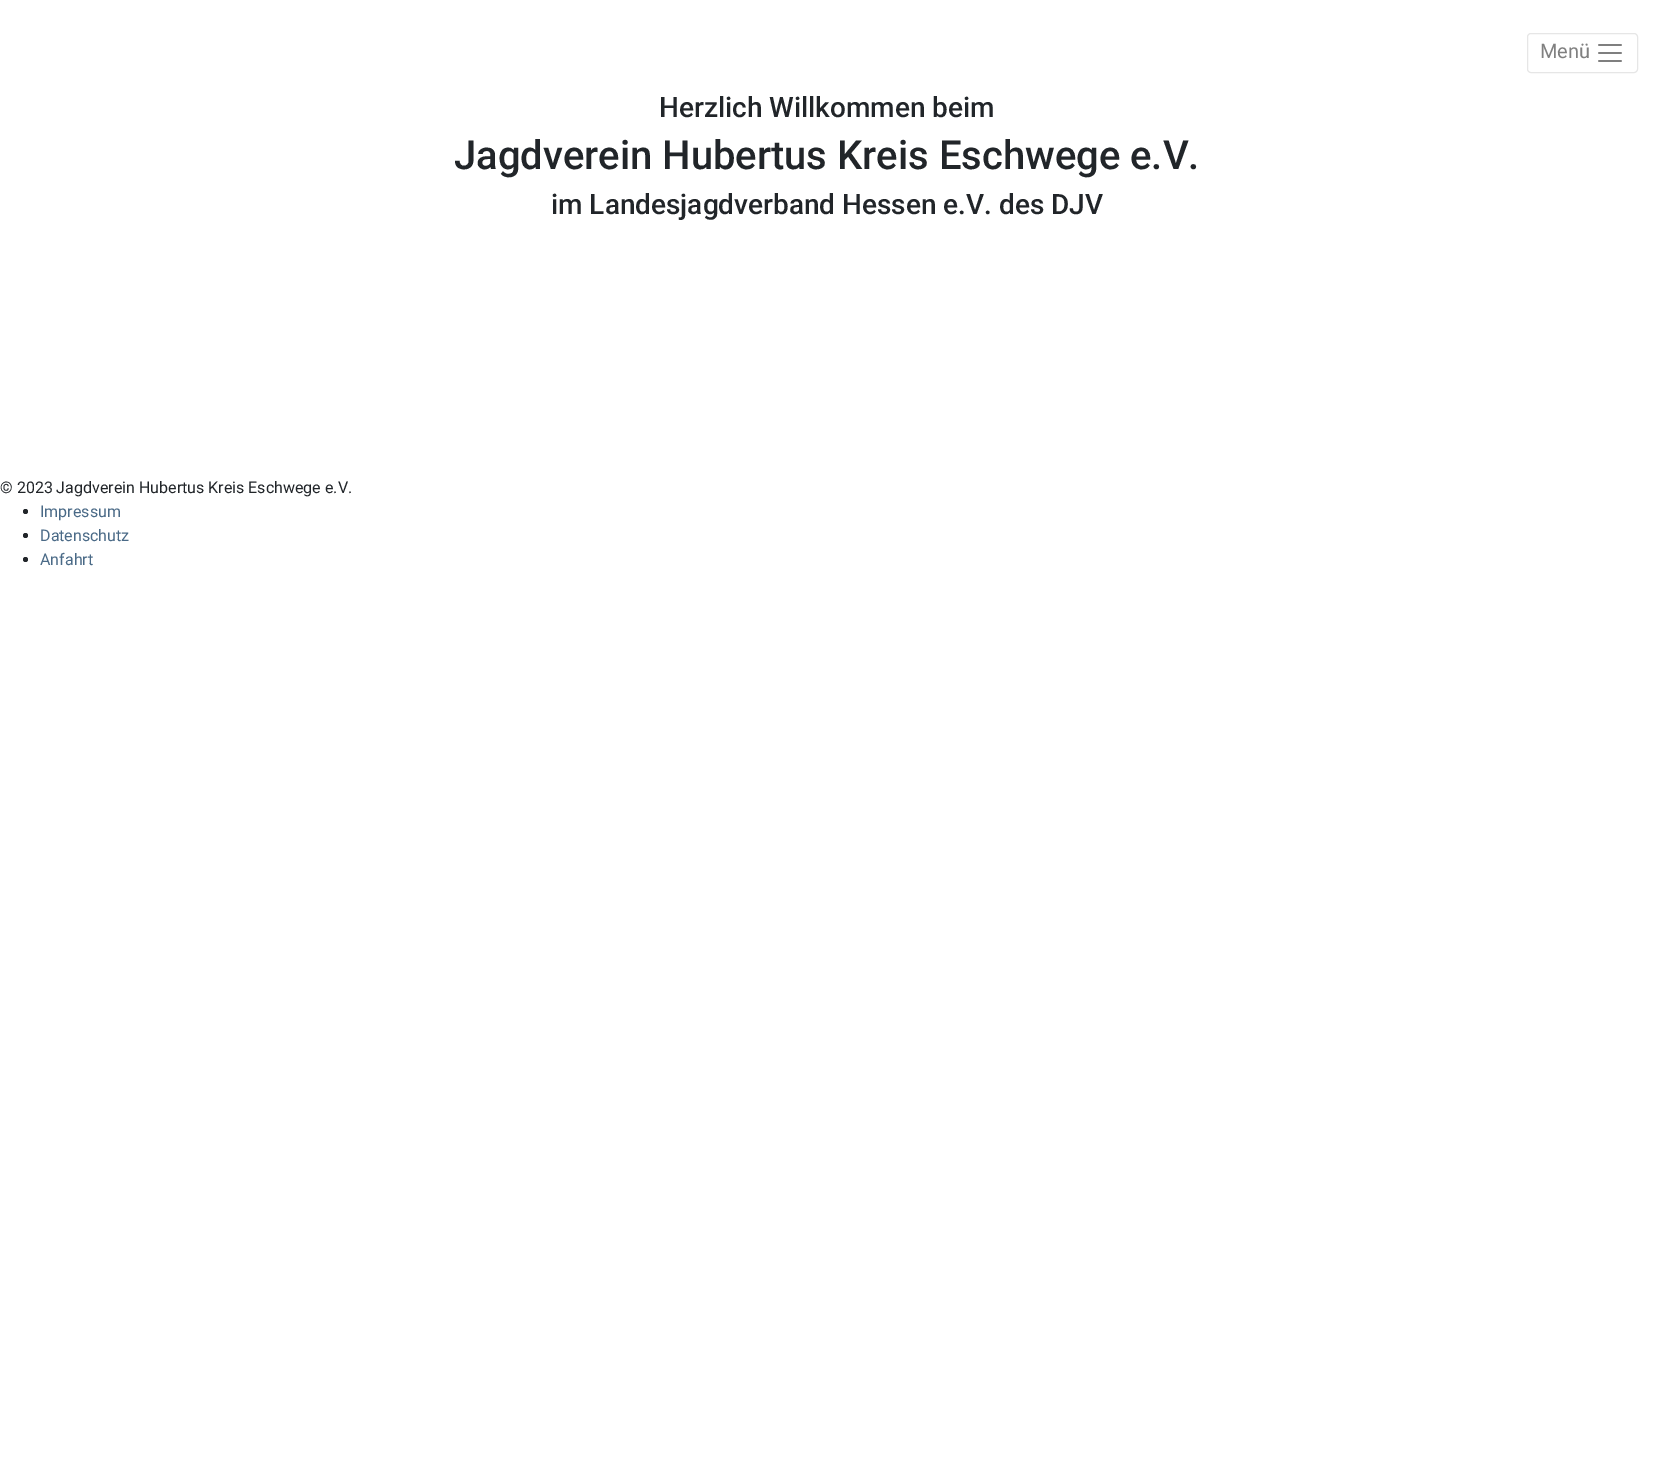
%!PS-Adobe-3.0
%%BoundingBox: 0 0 1654 1475
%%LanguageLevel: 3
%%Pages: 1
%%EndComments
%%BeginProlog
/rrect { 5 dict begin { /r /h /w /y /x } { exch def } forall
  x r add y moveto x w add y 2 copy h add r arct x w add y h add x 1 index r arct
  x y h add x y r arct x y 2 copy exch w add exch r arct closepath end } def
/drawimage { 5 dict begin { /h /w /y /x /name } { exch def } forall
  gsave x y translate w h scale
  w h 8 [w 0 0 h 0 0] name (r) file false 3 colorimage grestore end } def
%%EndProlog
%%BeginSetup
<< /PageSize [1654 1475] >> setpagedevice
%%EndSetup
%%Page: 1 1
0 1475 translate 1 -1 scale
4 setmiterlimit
1 setgray
0 0 1654 1475 rectfill
0.902 setgray
1527.5 33.5 110 39 3.5 rrect stroke
(images/1.raw) 1598 44 24 18 drawimage
0.129 0.145 0.161 setrgbcolor
newpath 25.5 511.5 2.5 0 360 arc closepath fill
newpath 25.5 535.5 2.5 0 360 arc closepath fill
newpath 25.5 559.5 2.5 0 360 arc closepath fill
/Roboto-Regular [20 0 0 -20 0 0] selectfont
0.502 setgray
1540 58 moveto (Menü) show
/Roboto-Medium [28 0 0 -28 0 0] selectfont
0.129 0.145 0.161 setrgbcolor
659 117 moveto (Herzlich Willkommen beim) show
/Roboto-Medium [40 0 0 -40 0 0] selectfont
454 169 moveto (Jagdverein Hubertus Kreis Eschwege e.V.) show
/Roboto-Medium [28 0 0 -28 0 0] selectfont
551 214 moveto (im Landesjagdverband Hessen e.V. des DJV) show
/Roboto-Regular [16 0 0 -16 0 0] selectfont
0 493 moveto (© 2023 Jagdverein Hubertus Kreis Eschwege e.V.) show
0.29 0.416 0.529 setrgbcolor
40 517 moveto (Impressum) show
40 541 moveto (Datenschutz) show
40 565 moveto (Anfahrt) show
showpage
%%EOF
